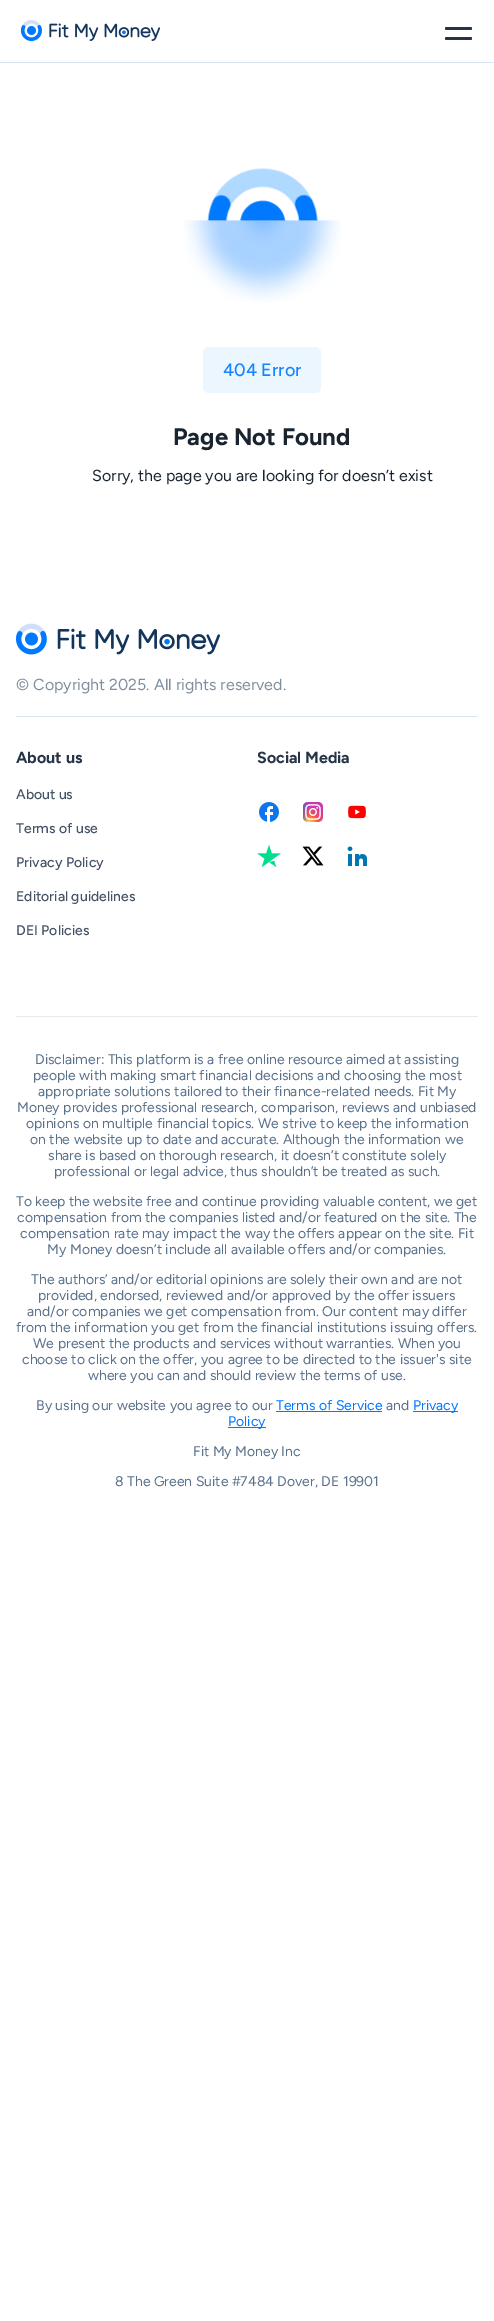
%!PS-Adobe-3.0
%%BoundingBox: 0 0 494 2321
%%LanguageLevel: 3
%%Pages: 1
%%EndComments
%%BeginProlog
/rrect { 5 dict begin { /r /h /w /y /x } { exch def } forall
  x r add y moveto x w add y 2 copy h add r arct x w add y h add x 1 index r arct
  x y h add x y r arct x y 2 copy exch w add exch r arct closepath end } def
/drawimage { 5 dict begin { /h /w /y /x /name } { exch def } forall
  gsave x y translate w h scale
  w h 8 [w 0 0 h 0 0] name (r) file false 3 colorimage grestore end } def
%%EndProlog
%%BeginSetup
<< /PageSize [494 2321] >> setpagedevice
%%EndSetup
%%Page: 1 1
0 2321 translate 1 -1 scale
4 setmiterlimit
1 setgray
0 0 494 2321 rectfill
0.855 0.89 0.949 setrgbcolor
0 62 494 1 rectfill
(images/1.raw) 20 20 141 21 drawimage
0.145 0.204 0.275 setrgbcolor
445 27 27 3 1.5 rrect fill
445 37 27 3 1.5 rrect fill
(images/2.raw) 184 168 157 135 drawimage
0.925 0.965 1 setrgbcolor
203 347 118 46 6 rrect fill
(images/3.raw) 16 623 204 32 drawimage
0.855 0.89 0.949 setrgbcolor
16 716 462 1 rectfill
(images/4.raw) 259 802 20 20 drawimage
(images/5.raw) 303 802 20 20 drawimage
(images/6.raw) 348 805 18 14 drawimage
(images/7.raw) 257 844 24 24 drawimage
(images/8.raw) 302 846 22 20 drawimage
(images/9.raw) 347 846 20 20 drawimage
0.918 setgray
16 1016 462 1 rectfill
0 0.475 1 setrgbcolor
276 1411 106 1 rectfill
413 1411 45 1 rectfill
228 1427 38 1 rectfill
/Figtree-Medium [18 0 0 -18 0 0] selectfont
0.086 0.522 1 setrgbcolor
223 376 moveto (404 Error) show
/Figtree-Bold [24 0 0 -24 0 0] selectfont
0.098 0.141 0.188 setrgbcolor
173 445 moveto (Page Not Found) show
/Figtree-Regular [16 0 0 -16 0 0] selectfont
92 481 moveto (Sorry, the page you are looking for doesn’t exist) show
0.498 0.557 0.624 setrgbcolor
16 690 moveto (© Copyright 2025. All rights reserved.) show
/Figtree-Bold [16 0 0 -16 0 0] selectfont
0.145 0.204 0.275 setrgbcolor
16 763 moveto (About us) show
/Figtree-Medium [14 0 0 -14 0 0] selectfont
0.267 0.322 0.396 setrgbcolor
16 799 moveto (About us) show
16 833 moveto (Terms of use) show
16 867 moveto (Privacy Policy) show
16 901 moveto (Editorial guidelines) show
16 935 moveto (DEI Policies) show
/Figtree-Bold [16 0 0 -16 0 0] selectfont
0.145 0.204 0.275 setrgbcolor
257 763 moveto (Social Media) show
/Figtree-Regular [14 0 0 -14 0 0] selectfont
0.353 0.443 0.549 setrgbcolor
35 1064 moveto (Disclaimer: This platform is a free online resource aimed at assisting) show
33 1080 moveto (people with making smart financial decisions and choosing the most) show
38 1096 moveto (appropriate solutions tailored to their finance-related needs. Fit My) show
17 1112 moveto (Money provides professional research, comparison, reviews and unbiased) show
26 1128 moveto (opinions on multiple financial topics. We strive to keep the information) show
30 1144 moveto (on the website up to date and accurate. Although the information we) show
48 1160 moveto (share is based on thorough research, it doesn’t constitute solely) show
54 1176 moveto (professional or legal advice, thus shouldn’t be treated as such.) show
16 1206 moveto (To keep the website free and continue providing valuable content, we get) show
17 1222 moveto (compensation from the companies listed and/or featured on the site. The) show
20 1238 moveto (compensation rate may impact the way the offers appear on the site. Fit) show
47 1254 moveto (My Money doesn’t include all available offers and/or companies.) show
31 1284 moveto (The authors’ and/or editorial opinions are solely their own and are not) show
38 1300 moveto (provided, endorsed, reviewed and/or approved by the offer issuers) show
27 1316 moveto (and/or companies we get compensation from. Our content may differ) show
16 1332 moveto (from the information you get from the financial institutions issuing offers.) show
33 1348 moveto (We present the products and services without warranties. When you) show
22 1364 moveto (choose to click on the offer, you agree to be directed to the issuer's site) show
88 1380 moveto (where you can and should review the terms of use.) show
36 1410 moveto (By using our website you agree to our) show
0 0.475 1 setrgbcolor
276 1410 moveto (Terms of Service) show
0.353 0.443 0.549 setrgbcolor
386 1410 moveto (and) show
0 0.475 1 setrgbcolor
413 1410 moveto (Privacy) show
228 1426 moveto (Policy) show
0.353 0.443 0.549 setrgbcolor
193 1456 moveto (Fit My Money Inc) show
115 1486 moveto (8 The Green Suite #7484 Dover, DE 19901) show
showpage
%%EOF
